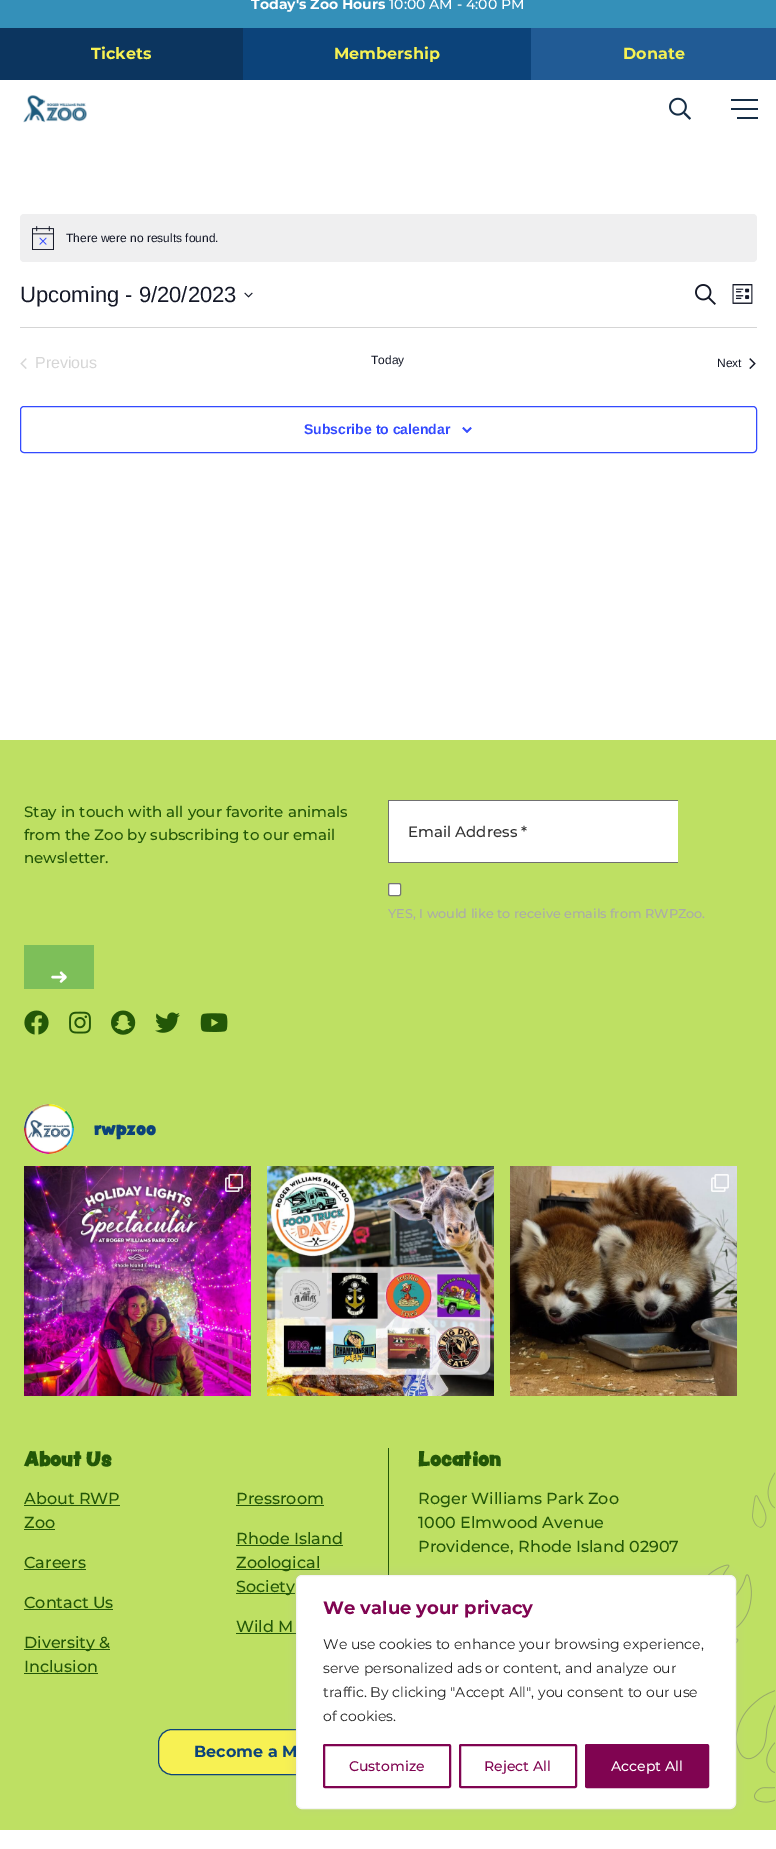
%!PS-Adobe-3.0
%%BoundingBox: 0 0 776 1849
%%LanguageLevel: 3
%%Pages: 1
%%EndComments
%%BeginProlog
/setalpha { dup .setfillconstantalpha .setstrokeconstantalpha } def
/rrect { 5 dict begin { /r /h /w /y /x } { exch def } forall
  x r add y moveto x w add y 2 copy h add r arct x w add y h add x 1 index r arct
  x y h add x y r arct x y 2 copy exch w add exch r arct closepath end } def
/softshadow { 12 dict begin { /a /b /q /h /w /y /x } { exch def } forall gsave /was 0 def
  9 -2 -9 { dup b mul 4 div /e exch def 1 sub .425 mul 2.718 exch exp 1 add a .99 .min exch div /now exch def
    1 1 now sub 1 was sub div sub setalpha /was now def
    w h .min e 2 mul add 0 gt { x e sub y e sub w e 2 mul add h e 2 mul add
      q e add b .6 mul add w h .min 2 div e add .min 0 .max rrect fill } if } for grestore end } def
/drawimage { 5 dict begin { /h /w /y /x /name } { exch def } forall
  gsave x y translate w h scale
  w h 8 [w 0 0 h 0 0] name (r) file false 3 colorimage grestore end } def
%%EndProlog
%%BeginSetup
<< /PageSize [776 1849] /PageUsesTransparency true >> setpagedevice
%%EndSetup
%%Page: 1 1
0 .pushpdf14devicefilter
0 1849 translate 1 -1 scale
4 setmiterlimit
1 setgray
0 0 776 1849 rectfill
0.204 0.565 0.725 setrgbcolor
0 0 776 28 rectfill
0.047 0.208 0.373 setrgbcolor
0 28 243 52 rectfill
0.047 0.263 0.478 setrgbcolor
243 28 288 52 rectfill
0.129 0.357 0.584 setrgbcolor
531 28 245 52 rectfill
(images/1.raw) 23 95 64 28 drawimage
(images/2.raw) 669 97 22 23 drawimage
0.082 0.176 0.271 setrgbcolor
731 99 27 2 rectfill
731 108 27 2 rectfill
737 117 21 2 rectfill
0.937 0.937 0.941 setrgbcolor
20 214 737 48 4 rrect fill
(images/3.raw) 32 226 22 24 drawimage
(images/4.raw) 244 292 9 6 drawimage
(images/5.raw) 695 284 21 21 drawimage
(images/6.raw) 732 284 21 20 drawimage
0.835 setgray
20 327 737 1 rectfill
(images/7.raw) 20 358 7 11 drawimage
(images/8.raw) 749 358 7 11 drawimage
0.2 0.29 1 setrgbcolor
20.5 406.5 736 46 3.5 rrect stroke
(images/9.raw) 462 427 10 6 drawimage
0.745 0.878 0.388 setrgbcolor
0 740 776 1090 rectfill
1 setgray
389 801 289 61 rectfill
0.439 setgray
388 800 290 1 rectfill
388 862 290 1 rectfill
388 800 1 63 rectfill
1 setgray
388.5 883.5 12 12 1.5 rrect gsave fill grestore
0.463 setgray
stroke
0.49 0.749 0.349 setrgbcolor
24 945 70 44 rectfill
(images/10.raw) 24 1010 25 25 drawimage
(images/11.raw) 69 1011 22 23 drawimage
(images/12.raw) 111 1010 25 25 drawimage
(images/13.raw) 155 1012 25 21 drawimage
(images/14.raw) 200 1013 28 19 drawimage
(images/15.raw) 24 1104 50 50 drawimage
(images/16.raw) 24 1166 227 230 drawimage
(images/17.raw) 225 1174 18 18 drawimage
(images/18.raw) 267 1166 227 230 drawimage
(images/19.raw) 510 1166 227 230 drawimage
(images/20.raw) 711 1174 18 18 drawimage
0.137 0.341 0.027 setrgbcolor
24 1505 96 1 rectfill
24 1529 31 1 rectfill
236 1505 88 1 rectfill
24 1569 62 1 rectfill
236 1545 107 1 rectfill
236 1569 84 1 rectfill
236 1593 59 1 rectfill
24 1609 89 1 rectfill
236 1633 60 1 rectfill
24 1649 86 1 rectfill
24 1673 74 1 rectfill
388 1448 1 127 rectfill
0.969 0.945 0.325 setrgbcolor
158.5 1729.5 229 45 13.5 rrect gsave fill grestore
0.047 0.263 0.478 setrgbcolor
stroke
(images/21.raw) 708 1472 67 331 drawimage
0.675 0.671 0.671 setrgbcolor
296 1574 440 234 6 5 0.3 softshadow
/Montserrat-Bold [14 0 0 -14 0 0] selectfont
1 setgray
251 9 moveto (Today's Zoo Hours) show
/Montserrat-Medium [14 0 0 -14 0 0] selectfont
389 9 moveto (10:00 AM - 4:00 PM) show
/Montserrat-Bold [16 0 0 -16 0 0] selectfont
0.969 0.945 0.325 setrgbcolor
91 59 moveto (Tickets) show
334 59 moveto (Membership) show
623 59 moveto (Donate) show
/LiberationSans-Regular [12 0 0 -12 0 0] selectfont
0.078 0.094 0.153 setrgbcolor
66 242 moveto (There were no results found.) show
/LiberationSans-Regular [22 0 0 -22 0 0] selectfont
20 302 moveto (Upcoming - 9/20/2023) show
/LiberationSans-Regular [16 0 0 -16 0 0] selectfont
0.835 setgray
35 368 moveto (Previous) show
/LiberationSans-Regular [12 0 0 -12 0 0] selectfont
0.078 0.094 0.153 setrgbcolor
371 364 moveto (Today) show
717 367 moveto (Next) show
/LiberationSans-Bold [14 0 0 -14 0 0] selectfont
0.2 0.29 1 setrgbcolor
304 434 moveto (Subscribe to calendar) show
/Montserrat-Medium [15 0 0 -15 0 0] selectfont
0.137 0.341 0.027 setrgbcolor
24 817 moveto (Stay in touch with all your favorite animals) show
24 840 moveto (from the Zoo by subscribing to our email) show
24 863 moveto (newsletter.) show
0.2 setgray
408 837 moveto (Email Address *) show
/Montserrat-Medium [12.8 0 0 -12.8 0 0] selectfont
0.667 setgray
388 918 moveto (YES, I would like to receive emails from RWPZoo.) show
/DejaVuSans-Regular [22 0 0 -22 0 0] selectfont
1 setgray
50 984 moveto (➜) show
/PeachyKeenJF-Bold [16 0 0 -16 0 0] selectfont
0.047 0.263 0.478 setrgbcolor
94 1135 moveto (rwpzoo) show
/PeachyKeenJF-Bold [18 0 0 -18 0 0] selectfont
0.137 0.341 0.027 setrgbcolor
24 1466 moveto (About Us) show
/Montserrat-Medium [16 0 0 -16 0 0] selectfont
24 1504 moveto (About RWP) show
24 1528 moveto (Zoo) show
236 1504 moveto (Pressroom) show
24 1568 moveto (Careers) show
236 1544 moveto (Rhode Island) show
236 1568 moveto (Zoological) show
236 1592 moveto (Society) show
24 1608 moveto (Contact Us) show
236 1632 moveto (Wild M) show
24 1648 moveto (Diversity &) show
24 1672 moveto (Inclusion) show
/PeachyKeenJF-Bold [18 0 0 -18 0 0] selectfont
418 1466 moveto (Location) show
/Montserrat-Medium [16 0 0 -16 0 0] selectfont
418 1504 moveto (Roger Williams Park Zoo) show
418 1528 moveto (1000 Elmwood Avenue) show
418 1552 moveto (Providence, Rhode Island 02907) show
/Montserrat-Bold [16 0 0 -16 0 0] selectfont
0.047 0.263 0.478 setrgbcolor
194 1757 moveto (Become a M) show
1 setgray
296.5 1575.5 439 233 5.5 rrect gsave fill grestore
0.957 setgray
stroke
/Montserrat-Bold [18 0 0 -18 0 0] selectfont
0.502 0.016 0.318 setrgbcolor
323 1614 moveto (We value your privacy) show
/Montserrat-Regular [14 0 0 -14 0 0] selectfont
0.129 setgray
323 1649 moveto (We use cookies to enhance your browsing experience,) show
323 1673 moveto (serve personalized ads or content, and analyze our) show
323 1697 moveto (traffic. By clicking "Accept All", you consent to our use) show
323 1721 moveto (of cookies.) show
0.502 0.016 0.318 setrgbcolor
2 setlinewidth
324 1745 126 42 1 rrect stroke
/Montserrat-Medium [14 0 0 -14 0 0] selectfont
349 1771 moveto (Customize) show
460 1745 116 42 1 rrect stroke
484 1771 moveto (Reject All) show
586 1745 122 42 1 rrect gsave fill grestore
stroke
1 setgray
611 1771 moveto (Accept All) show
.poppdf14devicefilter showpage
%%EOF
